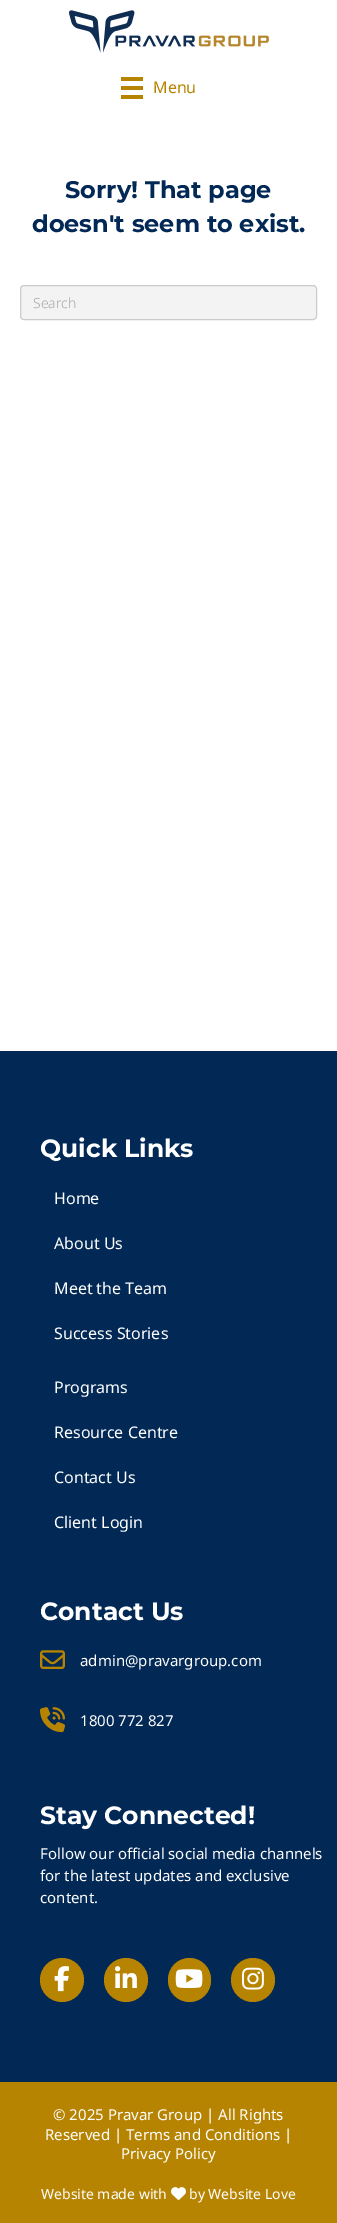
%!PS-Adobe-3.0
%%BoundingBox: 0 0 337 2223
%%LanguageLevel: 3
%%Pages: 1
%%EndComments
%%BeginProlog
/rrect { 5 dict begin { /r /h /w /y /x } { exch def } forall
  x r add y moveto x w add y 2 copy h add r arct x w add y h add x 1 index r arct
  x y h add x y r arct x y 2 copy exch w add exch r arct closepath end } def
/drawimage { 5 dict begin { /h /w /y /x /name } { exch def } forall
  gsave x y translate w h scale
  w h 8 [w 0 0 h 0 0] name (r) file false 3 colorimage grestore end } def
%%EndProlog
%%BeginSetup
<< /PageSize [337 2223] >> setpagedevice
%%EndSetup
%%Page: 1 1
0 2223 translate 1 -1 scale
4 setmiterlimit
1 setgray
0 0 337 2223 rectfill
(images/1.raw) 69 10 200 43 drawimage
0.714 0.518 0.004 setrgbcolor
121 77 22 4 rectfill
121 86 22 4 rectfill
121 95 22 4 rectfill
0.953 setgray
20.5 285.5 296 34 3.5 rrect gsave fill grestore
0.8 setgray
stroke
0.008 0.157 0.333 setrgbcolor
0 1051 337 1031 rectfill
(images/2.raw) 40 1650 25 19 drawimage
(images/3.raw) 40 1707 25 26 drawimage
0.714 0.518 0.004 setrgbcolor
newpath 62 1980 22 0 360 arc closepath fill
(images/4.raw) 54 1966 15 26 drawimage
newpath 126 1980 22 0 360 arc closepath fill
(images/5.raw) 115 1966 22 22 drawimage
168 1958 43 44 21.5 rrect fill
(images/6.raw) 175 1969 28 19 drawimage
newpath 253 1980 22 0 360 arc closepath fill
(images/7.raw) 242 1967 22 23 drawimage
0 2082 337 141 rectfill
(images/8.raw) 171 2187 15 13 drawimage
/NotoSans-Regular [16 0 0 -16 0 0] selectfont
153 93 moveto (Menu) show
/Montserrat-Bold [24 0 0 -24 0 0] selectfont
0.008 0.157 0.333 setrgbcolor
65 198 moveto (Sorry! That page) show
32 232 moveto (doesn't seem to exist.) show
/NotoSans-Light [14 0 0 -14 0 0] selectfont
0.651 setgray
33 308 moveto (Search) show
/Montserrat-Bold [25 0 0 -25 0 0] selectfont
1 setgray
40 1157 moveto (Quick Links) show
/NotoSans-Regular [16 0 0 -16 0 0] selectfont
54 1204 moveto (Home) show
54 1249 moveto (About Us) show
54 1294 moveto (Meet the Team) show
54 1339 moveto (Success Stories) show
54 1393 moveto (Programs) show
54 1438 moveto (Resource Centre) show
54 1483 moveto (Contact Us) show
54 1528 moveto (Client Login) show
/Montserrat-Bold [25 0 0 -25 0 0] selectfont
40 1620 moveto (Contact Us) show
/NotoSans-Regular [15 0 0 -15 0 0] selectfont
80 1666 moveto (admin@pravargroup.com) show
80 1726 moveto (1800 772 827) show
/Montserrat-Bold [25 0 0 -25 0 0] selectfont
40 1824 moveto (Stay Connected!) show
/NotoSans-Regular [15 0 0 -15 0 0] selectfont
40 1859 moveto (Follow our official social media channels) show
40 1881 moveto (for the latest updates and exclusive) show
40 1903 moveto (content.) show
53 2120 moveto (© 2025 Pravar Group | All Rights) show
45 2140 moveto (Reserved | Terms and Conditions |) show
121 2159 moveto (Privacy Policy) show
/NotoSans-Regular [14 0 0 -14 0 0] selectfont
41 2199 moveto (Website made with) show
189 2199 moveto (by Website Love) show
showpage
%%EOF
